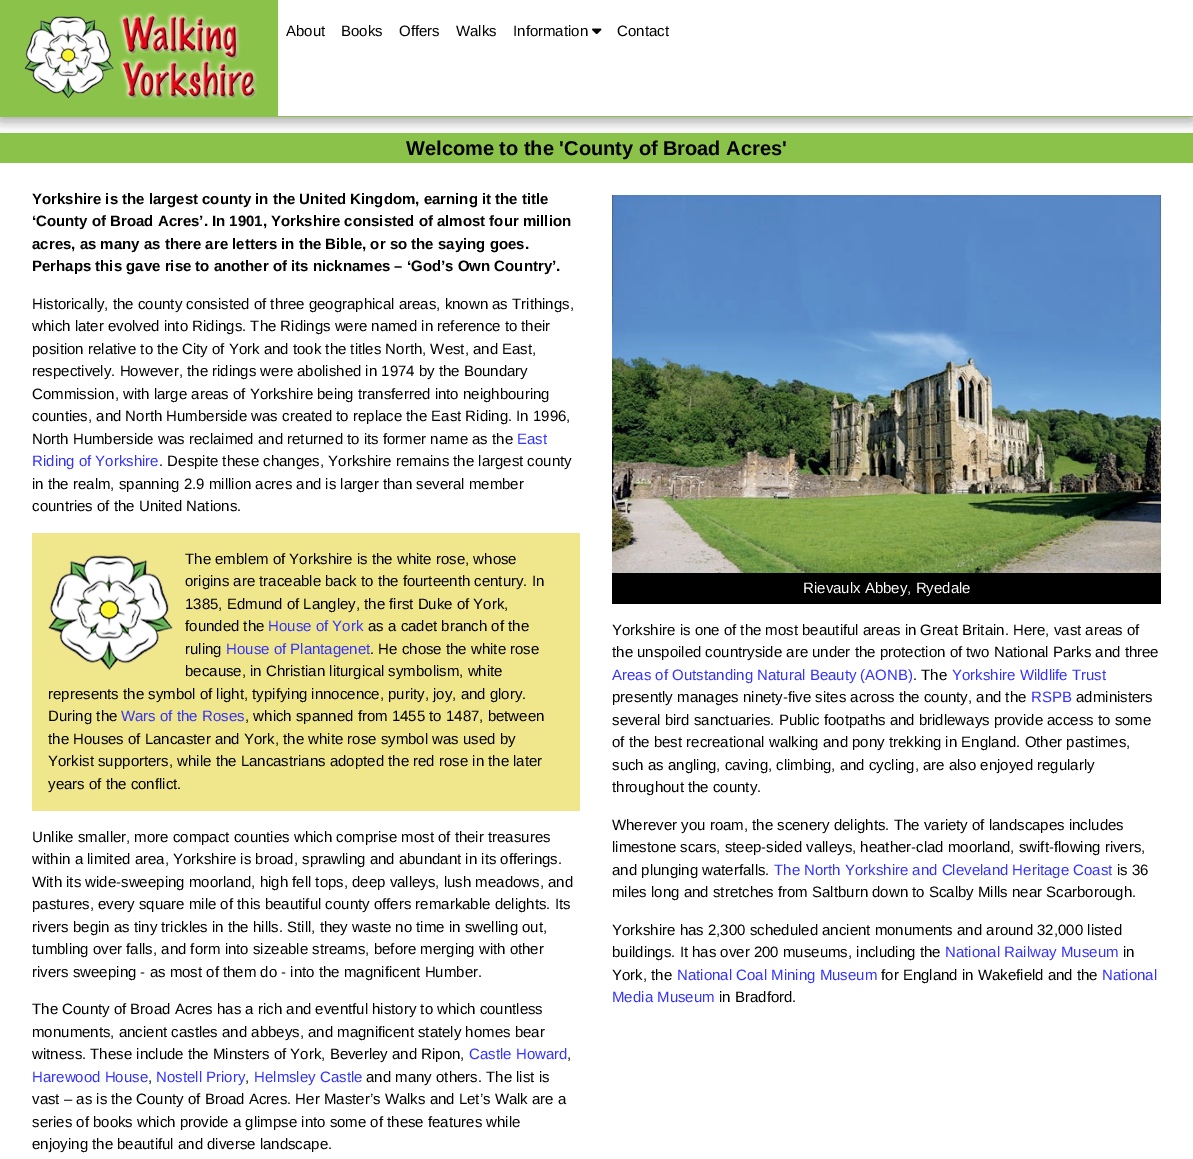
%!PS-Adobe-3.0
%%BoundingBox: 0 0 1193 1159
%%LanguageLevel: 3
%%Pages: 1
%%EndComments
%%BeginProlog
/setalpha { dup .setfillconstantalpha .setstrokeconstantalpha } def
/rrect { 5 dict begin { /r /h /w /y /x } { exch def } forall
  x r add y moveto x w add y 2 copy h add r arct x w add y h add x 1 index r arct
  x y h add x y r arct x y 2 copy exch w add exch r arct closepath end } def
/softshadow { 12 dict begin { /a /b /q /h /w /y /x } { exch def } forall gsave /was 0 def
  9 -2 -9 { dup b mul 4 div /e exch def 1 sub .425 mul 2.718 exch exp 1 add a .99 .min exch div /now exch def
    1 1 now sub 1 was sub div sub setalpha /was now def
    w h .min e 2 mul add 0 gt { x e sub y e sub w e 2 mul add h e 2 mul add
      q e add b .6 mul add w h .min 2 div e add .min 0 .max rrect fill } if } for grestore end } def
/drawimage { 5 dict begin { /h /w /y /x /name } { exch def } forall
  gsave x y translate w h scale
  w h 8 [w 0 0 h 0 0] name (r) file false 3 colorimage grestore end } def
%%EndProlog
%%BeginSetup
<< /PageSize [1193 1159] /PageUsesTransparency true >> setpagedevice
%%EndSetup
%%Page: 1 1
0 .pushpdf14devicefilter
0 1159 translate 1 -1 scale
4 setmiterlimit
1 setgray
0 0 1193 1159 rectfill
0.545 0.765 0.29 setrgbcolor
0 133 1193 30 rectfill
gsave
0 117 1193 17 rectclip
0 setgray
0 4 1193 117 0 10 0.19 softshadow
grestore
gsave
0 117 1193 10 rectclip
0 setgray
0 4 1193 117 0 5 0.2 softshadow
grestore
0 116 1193 1 rectfill
0 0 278 116 rectfill
(images/1.raw) 24 12 234 88 drawimage
(images/2.raw) 592 28 10 7 drawimage
0.941 0.902 0.549 setrgbcolor
32 533 548 278 rectfill
(images/3.raw) 48 555 125 115 drawimage
(images/4.raw) 612 195 549 378 drawimage
0 setgray
612 573 549 31 rectfill
/LiberationSans-Regular [15 0 0 -15 0 0] selectfont
286 36 moveto (About) show
341 36 moveto (Books) show
399 36 moveto (Offers) show
456 36 moveto (Walks) show
513 36 moveto (Information) show
617 36 moveto (Contact) show
/LiberationSans-Bold [20 0 0 -20 0 0] selectfont
406 155 moveto (Welcome to the 'County of Broad Acres') show
/LiberationSans-Bold [15 0 0 -15 0 0] selectfont
32 204 moveto (Yorkshire is the largest county in the United Kingdom, earning it the title) show
32 226 moveto (‘County of Broad Acres’. In 1901, Yorkshire consisted of almost four million) show
32 249 moveto (acres, as many as there are letters in the Bible, or so the saying goes.) show
32 271 moveto (Perhaps this gave rise to another of its nicknames – ‘God’s Own Country’.) show
/LiberationSans-Regular [15 0 0 -15 0 0] selectfont
32 309 moveto (Historically, the county consisted of three geographical areas, known as Trithings,) show
32 331 moveto (which later evolved into Ridings. The Ridings were named in reference to their) show
32 354 moveto (position relative to the City of York and took the titles North, West, and East,) show
32 376 moveto (respectively. However, the ridings were abolished in 1974 by the Boundary) show
32 399 moveto (Commission, with large areas of Yorkshire being transferred into neighbouring) show
32 421 moveto (counties, and North Humberside was created to replace the East Riding. In 1996,) show
32 444 moveto (North Humberside was reclaimed and returned to its former name as the) show
0.2 0.2 1 setrgbcolor
517 444 moveto (East) show
32 466 moveto (Riding of Yorkshire) show
0 setgray
159 466 moveto (. Despite these changes, Yorkshire remains the largest county) show
32 489 moveto (in the realm, spanning 2.9 million acres and is larger than several member) show
32 511 moveto (countries of the United Nations.) show
185 564 moveto (The emblem of Yorkshire is the white rose, whose) show
185 586 moveto (origins are traceable back to the fourteenth century. In) show
185 609 moveto (1385, Edmund of Langley, the first Duke of York,) show
185 631 moveto (founded the) show
0.2 0.2 1 setrgbcolor
268 631 moveto (House of York) show
0 setgray
368 631 moveto (as a cadet branch of the) show
185 654 moveto (ruling) show
0.2 0.2 1 setrgbcolor
226 654 moveto (House of Plantagenet) show
0 setgray
370 654 moveto (. He chose the white rose) show
185 676 moveto (because, in Christian liturgical symbolism, white) show
48 699 moveto (represents the symbol of light, typifying innocence, purity, joy, and glory.) show
48 721 moveto (During the) show
0.2 0.2 1 setrgbcolor
121 721 moveto (Wars of the Roses) show
0 setgray
245 721 moveto (, which spanned from 1455 to 1487, between) show
48 744 moveto (the Houses of Lancaster and York, the white rose symbol was used by) show
48 766 moveto (Yorkist supporters, while the Lancastrians adopted the red rose in the later) show
48 789 moveto (years of the conflict.) show
32 842 moveto (Unlike smaller, more compact counties which comprise most of their treasures) show
32 864 moveto (within a limited area, Yorkshire is broad, sprawling and abundant in its offerings.) show
32 887 moveto (With its wide-sweeping moorland, high fell tops, deep valleys, lush meadows, and) show
32 909 moveto (pastures, every square mile of this beautiful county offers remarkable delights. Its) show
32 932 moveto (rivers begin as tiny trickles in the hills. Still, they waste no time in swelling out,) show
32 954 moveto (tumbling over falls, and form into sizeable streams, before merging with other) show
32 977 moveto (rivers sweeping - as most of them do - into the magnificent Humber.) show
32 1014 moveto (The County of Broad Acres has a rich and eventful history to which countless) show
32 1037 moveto (monuments, ancient castles and abbeys, and magnificent stately homes bear) show
32 1059 moveto (witness. These include the Minsters of York, Beverley and Ripon,) show
0.2 0.2 1 setrgbcolor
469 1059 moveto (Castle Howard) show
0 setgray
567 1059 moveto (,) show
0.2 0.2 1 setrgbcolor
32 1082 moveto (Harewood House) show
0 setgray
148 1082 moveto (,) show
0.2 0.2 1 setrgbcolor
156 1082 moveto (Nostell Priory) show
0 setgray
245 1082 moveto (,) show
0.2 0.2 1 setrgbcolor
254 1082 moveto (Helmsley Castle) show
0 setgray
366 1082 moveto (and many others. The list is) show
32 1104 moveto (vast – as is the County of Broad Acres. Her Master’s Walks and Let’s Walk are a) show
32 1127 moveto (series of books which provide a glimpse into some of these features while) show
32 1149 moveto (enjoying the beautiful and diverse landscape.) show
1 setgray
803 593 moveto (Rievaulx Abbey, Ryedale) show
0 setgray
612 635 moveto (Yorkshire is one of the most beautiful areas in Great Britain. Here, vast areas of) show
612 657 moveto (the unspoiled countryside are under the protection of two National Parks and three) show
0.2 0.2 1 setrgbcolor
612 680 moveto (Areas of Outstanding Natural Beauty \(AONB\)) show
0 setgray
913 680 moveto (. The) show
0.2 0.2 1 setrgbcolor
952 680 moveto (Yorkshire Wildlife Trust) show
0 setgray
612 702 moveto (presently manages ninety-five sites across the county, and the) show
0.2 0.2 1 setrgbcolor
1031 702 moveto (RSPB) show
0 setgray
1076 702 moveto (administers) show
612 725 moveto (several bird sanctuaries. Public footpaths and bridleways provide access to some) show
612 747 moveto (of the best recreational walking and pony trekking in England. Other pastimes,) show
612 770 moveto (such as angling, caving, climbing, and cycling, are also enjoyed regularly) show
612 792 moveto (throughout the county.) show
612 830 moveto (Wherever you roam, the scenery delights. The variety of landscapes includes) show
612 852 moveto (limestone scars, steep-sided valleys, heather-clad moorland, swift-flowing rivers,) show
612 875 moveto (and plunging waterfalls.) show
0.2 0.2 1 setrgbcolor
774 875 moveto (The North Yorkshire and Cleveland Heritage Coast) show
0 setgray
1117 875 moveto (is 36) show
612 897 moveto (miles long and stretches from Saltburn down to Scalby Mills near Scarborough.) show
612 935 moveto (Yorkshire has 2,300 scheduled ancient monuments and around 32,000 listed) show
612 957 moveto (buildings. It has over 200 museums, including the) show
0.2 0.2 1 setrgbcolor
945 957 moveto (National Railway Museum) show
0 setgray
1123 957 moveto (in) show
612 980 moveto (York, the) show
0.2 0.2 1 setrgbcolor
677 980 moveto (National Coal Mining Museum) show
0 setgray
881 980 moveto (for England in Wakefield and the) show
0.2 0.2 1 setrgbcolor
1102 980 moveto (National) show
612 1002 moveto (Media Museum) show
0 setgray
719 1002 moveto (in Bradford.) show
.poppdf14devicefilter showpage
%%EOF
